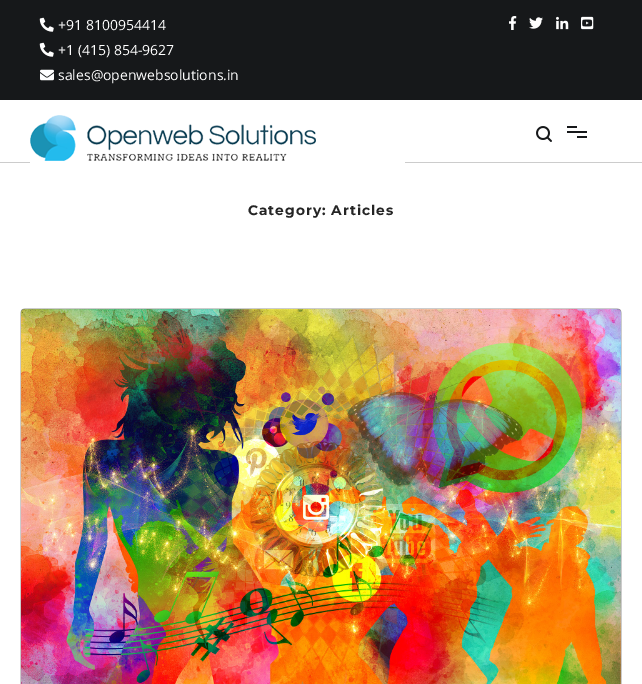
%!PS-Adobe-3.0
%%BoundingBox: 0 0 642 684
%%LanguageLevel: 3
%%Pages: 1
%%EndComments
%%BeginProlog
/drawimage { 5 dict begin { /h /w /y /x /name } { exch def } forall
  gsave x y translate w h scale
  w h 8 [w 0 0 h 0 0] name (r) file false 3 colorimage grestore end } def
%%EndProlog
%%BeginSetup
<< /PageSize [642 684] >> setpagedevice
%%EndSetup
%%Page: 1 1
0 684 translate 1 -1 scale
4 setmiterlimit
1 setgray
0 0 642 684 rectfill
0.086 0.094 0.102 setrgbcolor
0 0 642 100 rectfill
(images/1.raw) 39 17 15 15 drawimage
(images/1.raw) 39 42 15 15 drawimage
(images/2.raw) 40 69 14 12 drawimage
(images/3.raw) 509 16 8 14 drawimage
(images/4.raw) 529 17 14 12 drawimage
(images/5.raw) 556 16 13 14 drawimage
(images/6.raw) 581 16 13 14 drawimage
0.8 setgray
0 162 642 1 rectfill
(images/7.raw) 30 115 375 48 drawimage
(images/8.raw) 536 126 16 16 drawimage
0.086 0.094 0.102 setrgbcolor
567 126 10 2 rectfill
567 131 20 2 rectfill
577 136 10 2 rectfill
0.8 setgray
newpath 26 308 moveto 616 308 lineto 619 308 622 311 622 314 curveto 622 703 lineto 622 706 619 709 616 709 curveto 26 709 lineto 23 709 20 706 20 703 curveto 20 314 lineto 20 311 23 308 26 308 curveto closepath 26 309 moveto 616 309 lineto 619 309 621 311 621 314 curveto 621 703 lineto 621 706 619 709 616 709 curveto 26 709 lineto 23 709 21 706 21 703 curveto 21 314 lineto 21 311 23 309 26 309 curveto closepath eofill
(images/9.raw) 21 309 600 375 drawimage
/OpenSans-Regular [14 0 0 -14 0 0] selectfont
1 setgray
58 30 moveto (+91 8100954414) show
58 55 moveto (+1 \(415\) 854-9627) show
58 80 moveto (sales@openwebsolutions.in) show
/Montserrat-Bold [13.75 0 0 -13.75 0 0] selectfont
0.141 setgray
248 215 moveto 1 0 (Category: Articles) ashow
showpage
%%EOF
